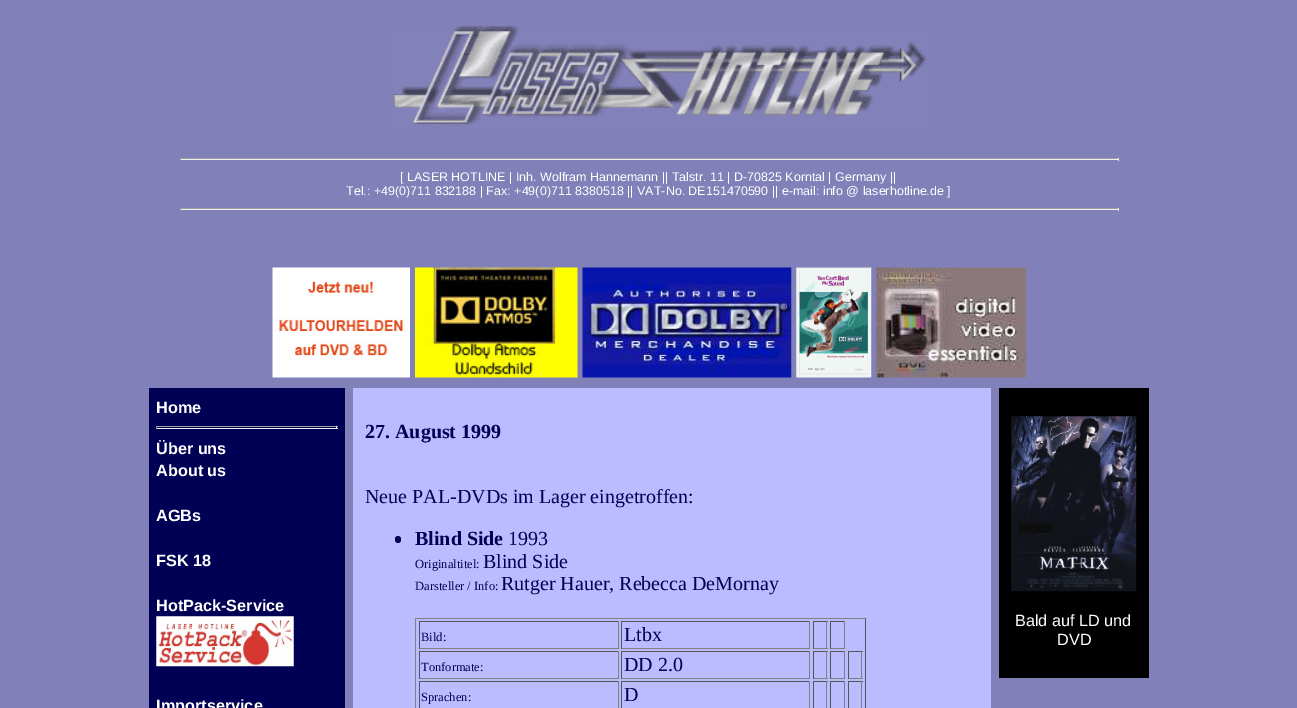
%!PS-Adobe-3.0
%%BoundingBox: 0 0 1297 708
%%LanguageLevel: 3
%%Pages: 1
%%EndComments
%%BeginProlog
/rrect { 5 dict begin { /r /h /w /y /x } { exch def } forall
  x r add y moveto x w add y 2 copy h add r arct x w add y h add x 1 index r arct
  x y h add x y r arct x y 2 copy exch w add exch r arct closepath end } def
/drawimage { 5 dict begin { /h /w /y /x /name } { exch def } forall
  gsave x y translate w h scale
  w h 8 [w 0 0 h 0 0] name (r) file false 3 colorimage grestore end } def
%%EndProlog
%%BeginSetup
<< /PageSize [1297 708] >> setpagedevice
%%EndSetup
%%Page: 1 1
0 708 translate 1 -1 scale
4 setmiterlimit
0.51 0.502 0.725 setrgbcolor
0 0 1297 708 rectfill
(images/1.raw) 393 26 534 102 drawimage
0.624 setgray
180 158 939 1 rectfill
0.933 setgray
1118 158 1 3 rectfill
180 159 939 1 rectfill
0.624 setgray
180 158 1 3 rectfill
180 208 939 1 rectfill
0.933 setgray
1118 208 1 3 rectfill
180 209 939 1 rectfill
0.624 setgray
180 208 1 3 rectfill
(images/2.raw) 272 267 138 111 drawimage
(images/3.raw) 415 267 163 111 drawimage
(images/4.raw) 582 267 210 111 drawimage
(images/5.raw) 796 267 76 111 drawimage
(images/6.raw) 876 267 151 111 drawimage
0 0 0.333 setrgbcolor
149 388 196 320 rectfill
0.624 setgray
156 426 182 1 rectfill
0.933 setgray
336 426 1 3 rectfill
156 428 182 1 rectfill
0.624 setgray
156 426 1 3 rectfill
(images/7.raw) 156 616 138 51 drawimage
0.733 0.733 1 setrgbcolor
353 388 638 320 rectfill
0 0 0.333 setrgbcolor
395 536 6 7 3 rrect fill
0.502 setgray
415 618 451 1 rectfill
0.333 setgray
865 618 1 90 rectfill
0.502 setgray
415 618 1 90 rectfill
0.333 setgray
419 621 200 1 rectfill
0.502 setgray
618 621 1 28 rectfill
419 648 200 1 rectfill
0.333 setgray
419 621 1 28 rectfill
621 621 189 1 rectfill
0.502 setgray
809 621 1 28 rectfill
621 648 189 1 rectfill
0.333 setgray
621 621 1 28 rectfill
813 621 15 1 rectfill
0.502 setgray
826 621 1 28 rectfill
813 648 15 1 rectfill
0.333 setgray
813 621 1 28 rectfill
830 621 15 1 rectfill
0.502 setgray
844 621 1 28 rectfill
830 648 15 1 rectfill
0.333 setgray
830 621 1 28 rectfill
419 651 200 1 rectfill
0.502 setgray
618 651 1 28 rectfill
419 678 200 1 rectfill
0.333 setgray
419 651 1 28 rectfill
621 651 189 1 rectfill
0.502 setgray
809 651 1 28 rectfill
621 678 189 1 rectfill
0.333 setgray
621 651 1 28 rectfill
813 651 15 1 rectfill
0.502 setgray
826 651 1 28 rectfill
813 678 15 1 rectfill
0.333 setgray
813 651 1 28 rectfill
830 651 15 1 rectfill
0.502 setgray
844 651 1 28 rectfill
830 678 15 1 rectfill
0.333 setgray
830 651 1 28 rectfill
848 651 15 1 rectfill
0.502 setgray
861 651 1 28 rectfill
848 678 15 1 rectfill
0.333 setgray
848 651 1 28 rectfill
419 681 200 1 rectfill
0.502 setgray
618 681 1 27 rectfill
0.333 setgray
419 681 1 27 rectfill
621 681 189 1 rectfill
0.502 setgray
809 681 1 27 rectfill
0.333 setgray
621 681 1 27 rectfill
813 681 15 1 rectfill
0.502 setgray
826 681 1 27 rectfill
0.333 setgray
813 681 1 27 rectfill
830 681 15 1 rectfill
0.502 setgray
844 681 1 27 rectfill
0.333 setgray
830 681 1 27 rectfill
848 681 15 1 rectfill
0.502 setgray
861 681 1 27 rectfill
0.333 setgray
848 681 1 27 rectfill
0 setgray
999 388 150 290 rectfill
(images/8.raw) 1011 416 126 176 drawimage
/LiberationSans-Regular [12.5 0 0 -12.5 0 0] selectfont
1 setgray
400 181 moveto ([ LASER HOTLINE | Inh. Wolfram Hannemann || Talstr. 11 | D-70825 Korntal | Germany ||) show
346 195 moveto (Tel.: +49\(0\)711 832188 | Fax: +49\(0\)711 8380518 || VAT-No. DE151470590 || e-mail: info @ laserhotline.de ]) show
/LiberationSans-Bold [16.25 0 0 -16.25 0 0] selectfont
156 413 moveto (Home) show
156 454 moveto (Über uns) show
156 476 moveto (About us) show
156 521 moveto (AGBs) show
156 566 moveto (FSK 18) show
156 611 moveto (HotPack-Service) show
156 711 moveto (Importservice) show
/LiberationSerif-Bold [20 0 0 -20 0 0] selectfont
0 0 0.333 setrgbcolor
365 438 moveto (27. August 1999) show
/LiberationSerif-Regular [20 0 0 -20 0 0] selectfont
365 503 moveto (Neue PAL-DVDs im Lager eingetroffen:) show
/LiberationSerif-Bold [20 0 0 -20 0 0] selectfont
415 545 moveto (Blind Side) show
/LiberationSerif-Regular [20 0 0 -20 0 0] selectfont
508 545 moveto (1993) show
/LiberationSerif-Regular [12.5 0 0 -12.5 0 0] selectfont
415 568 moveto (Originaltitel:) show
/LiberationSerif-Regular [20 0 0 -20 0 0] selectfont
483 568 moveto (Blind Side) show
/LiberationSerif-Regular [12.5 0 0 -12.5 0 0] selectfont
415 590 moveto (Darsteller / Info:) show
/LiberationSerif-Regular [20 0 0 -20 0 0] selectfont
501 590 moveto (Rutger Hauer, Rebecca DeMornay) show
/LiberationSerif-Regular [12.5 0 0 -12.5 0 0] selectfont
421 641 moveto (Bild:) show
/LiberationSerif-Regular [20 0 0 -20 0 0] selectfont
624 641 moveto (Ltbx) show
/LiberationSerif-Regular [12.5 0 0 -12.5 0 0] selectfont
421 671 moveto (Tonformate:) show
/LiberationSerif-Regular [20 0 0 -20 0 0] selectfont
624 671 moveto (DD 2.0) show
/LiberationSerif-Regular [12.5 0 0 -12.5 0 0] selectfont
421 701 moveto (Sprachen:) show
/LiberationSerif-Regular [20 0 0 -20 0 0] selectfont
624 701 moveto (D) show
/LiberationSans-Regular [16.25 0 0 -16.25 0 0] selectfont
1 setgray
1015 626 moveto (Bald auf LD und) show
1057 645 moveto (DVD) show
showpage
%%EOF
